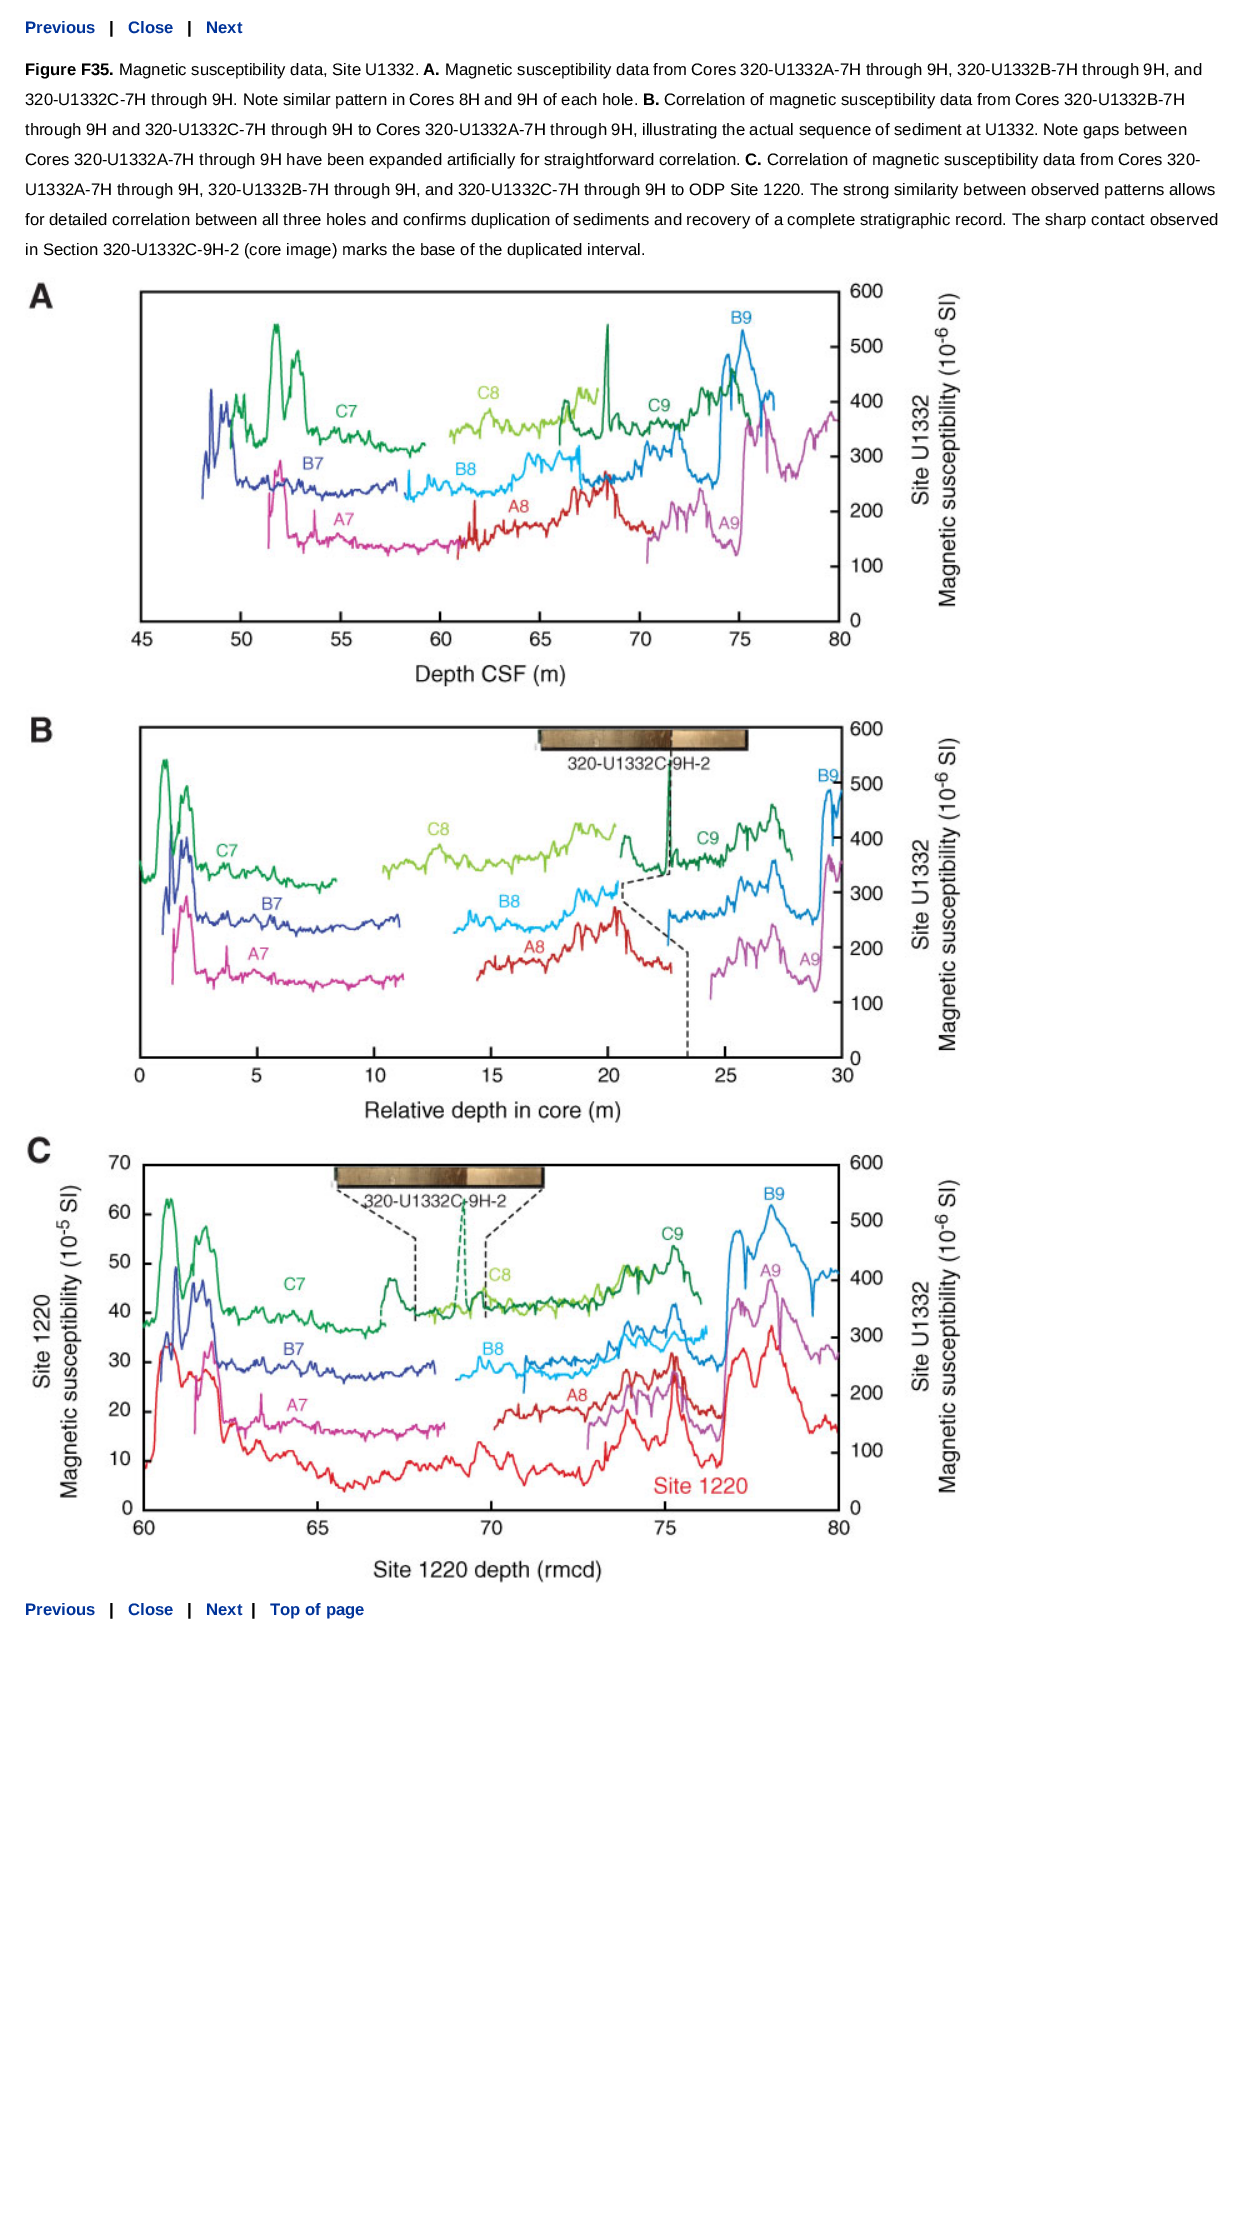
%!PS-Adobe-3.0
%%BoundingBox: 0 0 1248 2221
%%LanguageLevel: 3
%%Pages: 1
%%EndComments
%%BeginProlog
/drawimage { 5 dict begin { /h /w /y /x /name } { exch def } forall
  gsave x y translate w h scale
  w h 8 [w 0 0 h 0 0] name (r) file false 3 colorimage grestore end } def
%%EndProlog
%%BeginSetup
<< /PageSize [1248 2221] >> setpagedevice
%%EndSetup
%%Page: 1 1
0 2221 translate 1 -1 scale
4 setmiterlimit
1 setgray
0 0 1248 2221 rectfill
(images/1.raw) 25 277 938 1306 drawimage
/LiberationSans-Bold [16.67 0 0 -16.67 0 0] selectfont
0 0.2 0.6 setrgbcolor
25 33 moveto (Previous) show
0 setgray
109 33 moveto (|) show
0 0.2 0.6 setrgbcolor
128 33 moveto (Close) show
0 setgray
187 33 moveto (|) show
0 0.2 0.6 setrgbcolor
206 33 moveto (Next) show
0 setgray
25 75 moveto (Figure F35.) show
/LiberationSans-Regular [16.67 0 0 -16.67 0 0] selectfont
119 75 moveto (Magnetic susceptibility data, Site U1332.) show
/LiberationSans-Bold [16.67 0 0 -16.67 0 0] selectfont
423 75 moveto (A.) show
/LiberationSans-Regular [16.67 0 0 -16.67 0 0] selectfont
445 75 moveto (Magnetic susceptibility data from Cores 320-U1332A-7H through 9H, 320-U1332B-7H through 9H, and) show
25 105 moveto (320-U1332C-7H through 9H. Note similar pattern in Cores 8H and 9H of each hole.) show
/LiberationSans-Bold [16.67 0 0 -16.67 0 0] selectfont
643 105 moveto (B.) show
/LiberationSans-Regular [16.67 0 0 -16.67 0 0] selectfont
664 105 moveto (Correlation of magnetic susceptibility data from Cores 320-U1332B-7H) show
25 135 moveto (through 9H and 320-U1332C-7H through 9H to Cores 320-U1332A-7H through 9H, illustrating the actual sequence of sediment at U1332. Note gaps between) show
25 165 moveto (Cores 320-U1332A-7H through 9H have been expanded artificially for straightforward correlation.) show
/LiberationSans-Bold [16.67 0 0 -16.67 0 0] selectfont
745 165 moveto (C.) show
/LiberationSans-Regular [16.67 0 0 -16.67 0 0] selectfont
767 165 moveto (Correlation of magnetic susceptibility data from Cores 320-) show
25 195 moveto (U1332A-7H through 9H, 320-U1332B-7H through 9H, and 320-U1332C-7H through 9H to ODP Site 1220. The strong similarity between observed patterns allows) show
25 225 moveto (for detailed correlation between all three holes and confirms duplication of sediments and recovery of a complete stratigraphic record. The sharp contact observed) show
25 255 moveto (in Section 320-U1332C-9H-2 \(core image\) marks the base of the duplicated interval.) show
/LiberationSans-Bold [16.67 0 0 -16.67 0 0] selectfont
0 0.2 0.6 setrgbcolor
25 1615 moveto (Previous) show
0 setgray
109 1615 moveto (|) show
0 0.2 0.6 setrgbcolor
128 1615 moveto (Close) show
0 setgray
187 1615 moveto (|) show
0 0.2 0.6 setrgbcolor
206 1615 moveto (Next) show
0 setgray
251 1615 moveto (|) show
0 0.2 0.6 setrgbcolor
270 1615 moveto (Top of page) show
showpage
%%EOF
